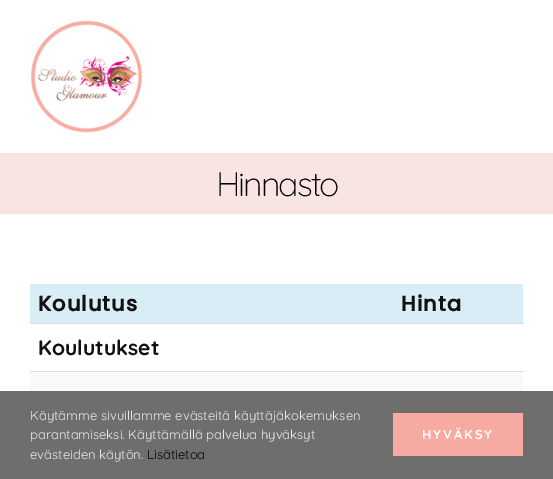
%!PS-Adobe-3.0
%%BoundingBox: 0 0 553 479
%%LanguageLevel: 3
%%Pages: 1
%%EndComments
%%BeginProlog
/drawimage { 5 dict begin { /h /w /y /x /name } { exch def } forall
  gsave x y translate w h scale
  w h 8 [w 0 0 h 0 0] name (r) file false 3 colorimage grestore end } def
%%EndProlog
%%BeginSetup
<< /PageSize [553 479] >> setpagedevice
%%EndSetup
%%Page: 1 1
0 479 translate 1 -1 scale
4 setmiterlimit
1 setgray
0 0 553 479 rectfill
(images/1.raw) 30 20 113 113 drawimage
0.969 0.894 0.89 setrgbcolor
0 153 553 61 rectfill
0.851 0.929 0.969 setrgbcolor
30 284 493 39 rectfill
0.867 setgray
30 323 494 1 rectfill
30 371 494 1 rectfill
0.976 setgray
30 372 493 19 rectfill
0.431 setgray
0 391 553 88 rectfill
0.969 0.667 0.631 setrgbcolor
393 413 130 43 rectfill
/Quicksand-Light [34 0 0 -34 0 0] selectfont
0 setgray
216 196 moveto -2 0 (Hinnasto) ashow
/Poppins-Bold [21 0 0 -21 0 0] selectfont
0.067 setgray
38 311 moveto 1 0 (Koulutus) ashow
401 311 moveto 1 0 (Hinta) ashow
/Quicksand-Bold [21 0 0 -21 0 0] selectfont
38 355 moveto (Koulutukset) show
/Quicksand-Regular [13 0 0 -13 0 0] selectfont
0.922 setgray
30 420 moveto (Käytämme sivuillamme evästeitä käyttäjäkokemuksen) show
30 439 moveto (parantamiseksi. Käyttämällä palvelua hyväksyt) show
30 459 moveto (evästeiden käytön.) show
0 setgray
147 459 moveto (Lisätietoa) show
/Quicksand-Bold [13 0 0 -13 0 0] selectfont
1 setgray
422 439 moveto 2 0 (HYVÄKSY) ashow
showpage
%%EOF
